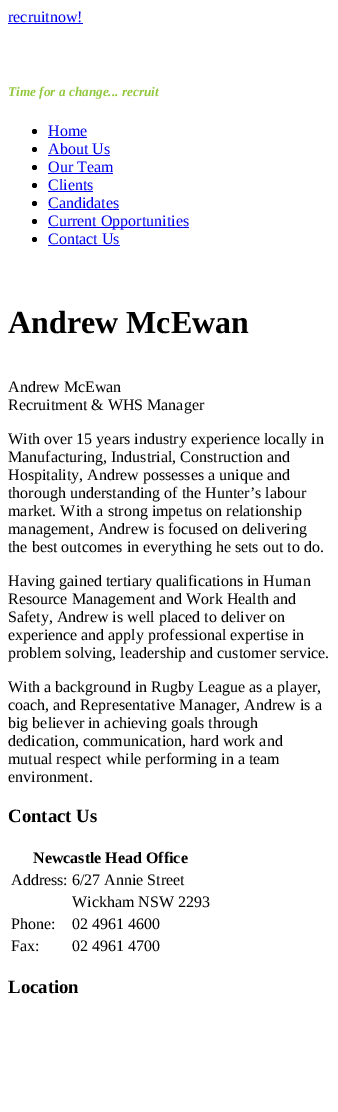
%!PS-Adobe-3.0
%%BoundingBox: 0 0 338 1112
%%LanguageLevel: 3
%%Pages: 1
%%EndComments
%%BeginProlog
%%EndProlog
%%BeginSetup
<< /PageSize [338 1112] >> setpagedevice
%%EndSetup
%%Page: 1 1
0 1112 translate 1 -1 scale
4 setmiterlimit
1 setgray
0 0 338 1112 rectfill
0 0 0.933 setrgbcolor
8 23 75 1 rectfill
0 setgray
newpath 34.5 131.5 2.5 0 360 arc closepath fill
0 0 0.933 setrgbcolor
48 137 39 1 rectfill
0 setgray
newpath 34.5 149.5 2.5 0 360 arc closepath fill
0 0 0.933 setrgbcolor
48 155 62 1 rectfill
0 setgray
newpath 34.5 167.5 2.5 0 360 arc closepath fill
0 0 0.933 setrgbcolor
48 173 65 1 rectfill
0 setgray
newpath 34.5 185.5 2.5 0 360 arc closepath fill
0 0 0.933 setrgbcolor
48 191 45 1 rectfill
0 setgray
newpath 34.5 203.5 2.5 0 360 arc closepath fill
0 0 0.933 setrgbcolor
48 209 71 1 rectfill
0 setgray
newpath 34.5 221.5 2.5 0 360 arc closepath fill
0 0 0.933 setrgbcolor
48 227 141 1 rectfill
0 setgray
newpath 34.5 239.5 2.5 0 360 arc closepath fill
0 0 0.933 setrgbcolor
48 245 72 1 rectfill
/LiberationSerif-Regular [16 0 0 -16 0 0] selectfont
8 22 moveto (recruitnow!) show
/LiberationSerif-BoldItalic [13.25 0 0 -13.25 0 0] selectfont
0.573 0.784 0.243 setrgbcolor
8 96 moveto (Time for a change... recruit) show
/LiberationSerif-Regular [16 0 0 -16 0 0] selectfont
0 0 0.933 setrgbcolor
48 136 moveto (Home) show
48 154 moveto (About Us) show
48 172 moveto (Our Team) show
48 190 moveto (Clients) show
48 208 moveto (Candidates) show
48 226 moveto (Current Opportunities) show
48 244 moveto (Contact Us) show
/LiberationSerif-Bold [32 0 0 -32 0 0] selectfont
0 setgray
8 333 moveto (Andrew McEwan) show
/LiberationSerif-Regular [16 0 0 -16 0 0] selectfont
8 392 moveto (Andrew McEwan) show
8 410 moveto (Recruitment & WHS Manager) show
8 444 moveto (With over 15 years industry experience locally in) show
8 462 moveto (Manufacturing, Industrial, Construction and) show
8 480 moveto (Hospitality, Andrew possesses a unique and) show
8 498 moveto (thorough understanding of the Hunter’s labour) show
8 516 moveto (market. With a strong impetus on relationship) show
8 534 moveto (management, Andrew is focused on delivering) show
8 552 moveto (the best outcomes in everything he sets out to do.) show
8 586 moveto (Having gained tertiary qualifications in Human) show
8 604 moveto (Resource Management and Work Health and) show
8 622 moveto (Safety, Andrew is well placed to deliver on) show
8 640 moveto (experience and apply professional expertise in) show
8 658 moveto (problem solving, leadership and customer service.) show
8 692 moveto (With a background in Rugby League as a player,) show
8 710 moveto (coach, and Representative Manager, Andrew is a) show
8 728 moveto (big believer in achieving goals through) show
8 746 moveto (dedication, communication, hard work and) show
8 764 moveto (mutual respect while performing in a team) show
8 782 moveto (environment.) show
/LiberationSerif-Bold [18.75 0 0 -18.75 0 0] selectfont
8 822 moveto (Contact Us) show
/LiberationSerif-Bold [16 0 0 -16 0 0] selectfont
33 863 moveto (Newcastle Head Office) show
/LiberationSerif-Regular [16 0 0 -16 0 0] selectfont
11 885 moveto (Address: 6/27 Annie Street) show
72 907 moveto (Wickham NSW 2293) show
11 929 moveto (Phone:) show
72 929 moveto (02 4961 4600) show
11 951 moveto (Fax:) show
72 951 moveto (02 4961 4700) show
/LiberationSerif-Bold [18.75 0 0 -18.75 0 0] selectfont
8 993 moveto (Location) show
showpage
%%EOF
